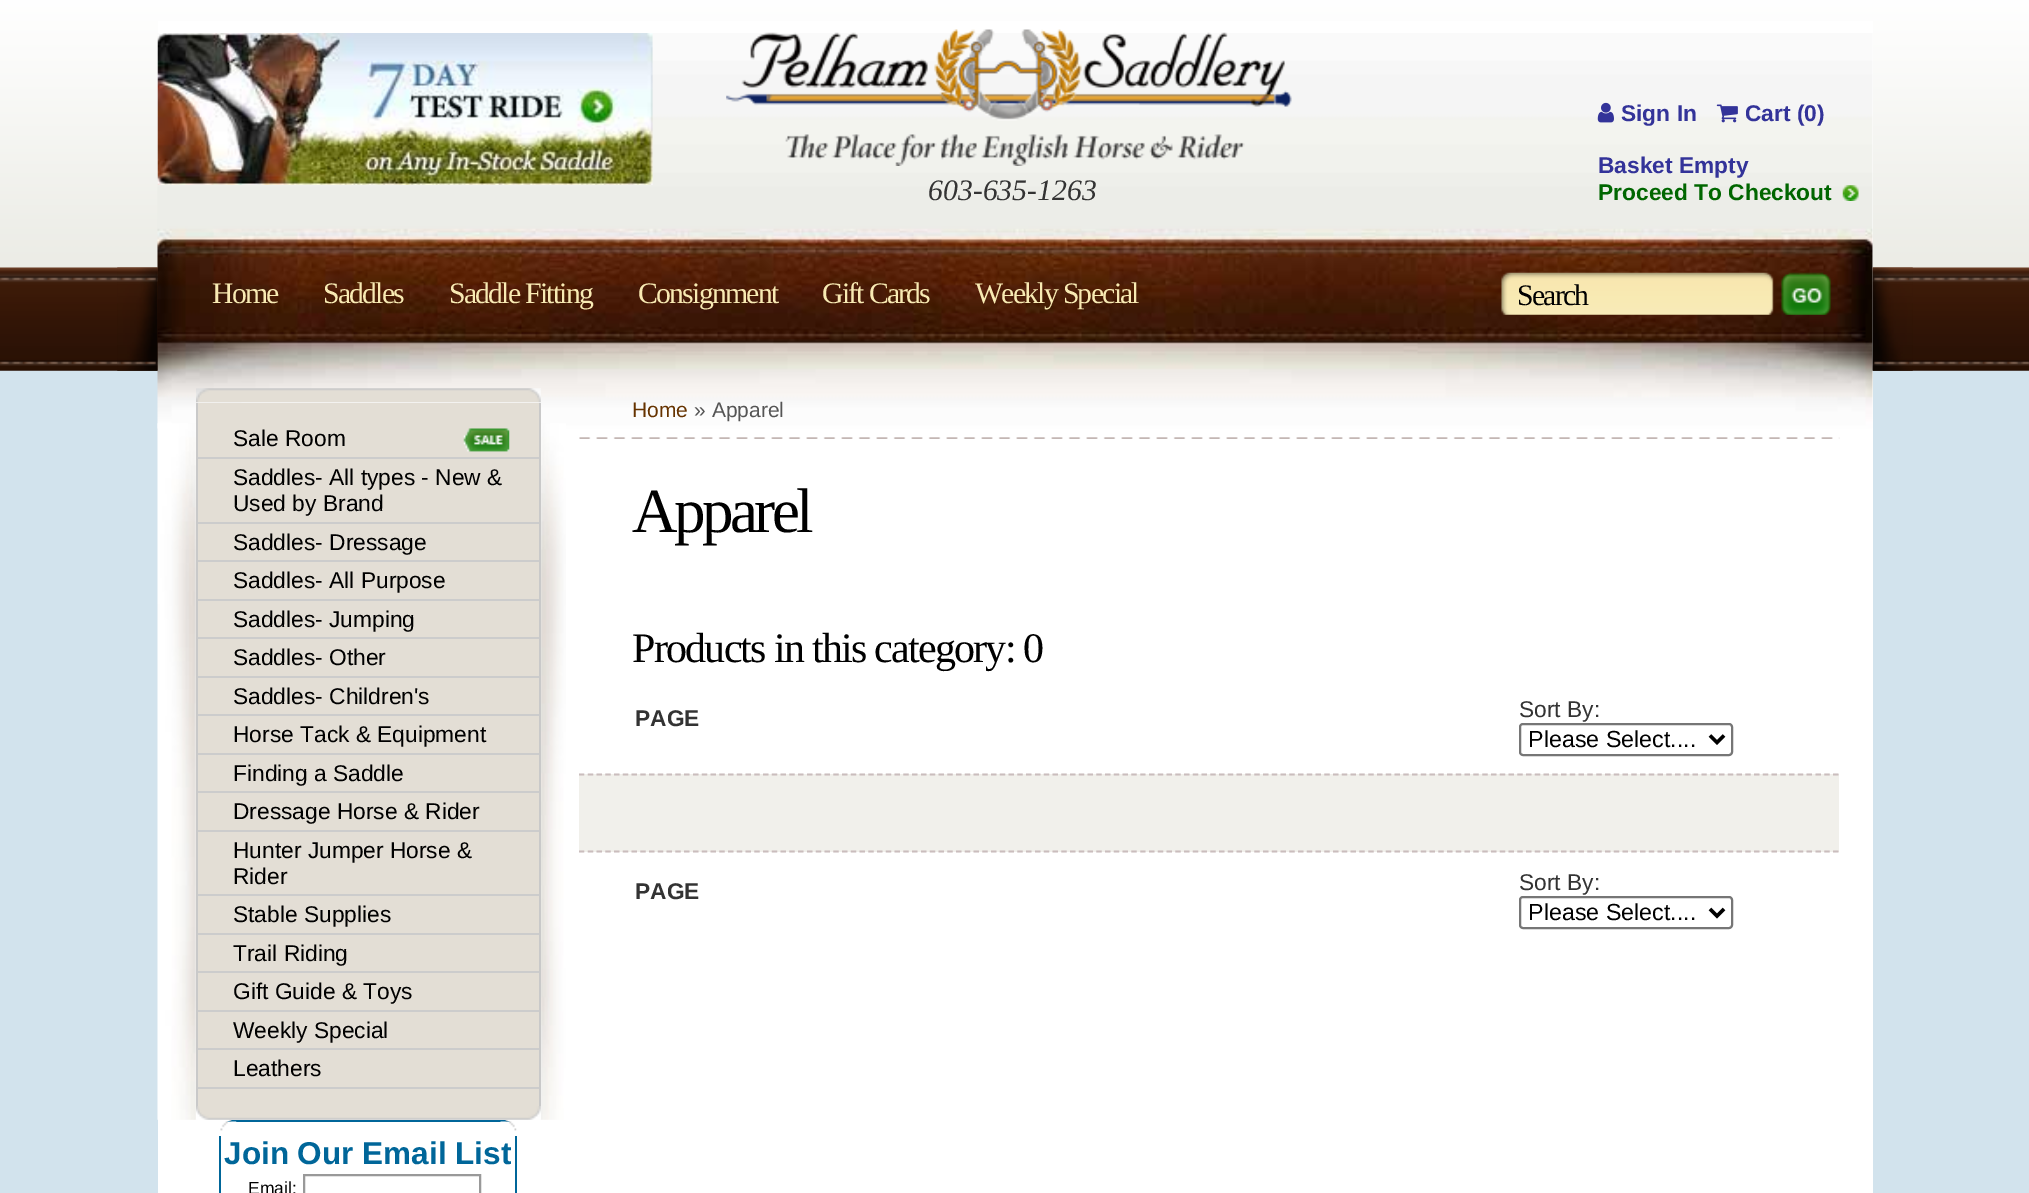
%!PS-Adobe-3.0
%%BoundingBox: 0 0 2029 1193
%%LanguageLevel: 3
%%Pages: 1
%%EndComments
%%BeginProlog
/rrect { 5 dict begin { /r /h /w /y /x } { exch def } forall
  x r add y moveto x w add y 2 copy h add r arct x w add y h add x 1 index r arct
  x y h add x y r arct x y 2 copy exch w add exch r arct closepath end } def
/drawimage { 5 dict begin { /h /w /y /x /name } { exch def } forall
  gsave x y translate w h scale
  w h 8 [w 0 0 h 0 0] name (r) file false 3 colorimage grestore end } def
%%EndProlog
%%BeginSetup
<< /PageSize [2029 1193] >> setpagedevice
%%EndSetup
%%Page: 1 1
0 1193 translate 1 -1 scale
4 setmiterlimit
0.824 0.89 0.929 setrgbcolor
0 0 2029 1193 rectfill
(images/1.raw) 0 0 2029 371 drawimage
1 setgray
158 21 1715 1172 rectfill
(images/2.raw) 157 33 1716 396 drawimage
(images/3.raw) 157 33 496 152 drawimage
(images/4.raw) 726 29 566 137 drawimage
(images/5.raw) 1597 102 17 21 drawimage
(images/6.raw) 1716 104 22 19 drawimage
(images/7.raw) 1842 185 17 16 drawimage
(images/8.raw) 117 267 41 104 drawimage
(images/9.raw) 1501 272 330 43 drawimage
(images/10.raw) 1872 267 41 104 drawimage
(images/11.raw) 157 423 409 697 drawimage
(images/12.raw) 196 388 345 15 drawimage
0.89 0.871 0.835 setrgbcolor
198 403 341 703 rectfill
0.788 setgray
539 403 2 703 rectfill
196 403 2 703 rectfill
(images/13.raw) 463 428 47 24 drawimage
0.8 setgray
198 457 341 2 rectfill
198 522 341 2 rectfill
198 560 341 2 rectfill
198 599 341 2 rectfill
198 637 341 2 rectfill
198 676 341 2 rectfill
198 714 341 2 rectfill
198 753 341 2 rectfill
198 791 341 2 rectfill
198 830 341 2 rectfill
198 894 341 2 rectfill
198 933 341 2 rectfill
198 971 341 2 rectfill
198 1010 341 2 rectfill
198 1048 341 2 rectfill
198 1087 341 2 rectfill
0 0.4 0.6 setrgbcolor
221 1120 295 2 rectfill
(images/15.raw) 220 1119 17 12 drawimage
(images/16.raw) 500 1119 17 12 drawimage
(images/14.raw) 196 1106 345 14 drawimage
515 1136 2 57 rectfill
219 1136 2 57 rectfill
0.6 setgray
2 setlinewidth
304 1175 176 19 rectstroke
(images/17.raw) 579 437 1261 2 drawimage
0.463 setgray
1520 724 212 31 3 rrect stroke
0 setgray
3.5 setlinewidth
newpath 1710 735.5 moveto 1717 742.5 lineto 1724 735.5 lineto stroke
0.945 0.941 0.922 setrgbcolor
579 774 1260 78 rectfill
0.792 0.741 0.741 setrgbcolor
1.8 setlinewidth
[5.25 3.52] 0 setdash
newpath 579 774.5 moveto 1839 774.5 lineto stroke
newpath 579 851.5 moveto 1839 851.5 lineto stroke
0.463 setgray
2 setlinewidth
[] 0 setdash
1520 897 212 31 3 rrect stroke
0 setgray
3.5 setlinewidth
newpath 1710 909 moveto 1717 916 lineto 1724 909 lineto stroke
/LiberationSans-Bold [22.75 0 0 -22.75 0 0] selectfont
0.2 0.2 0.6 setrgbcolor
1621 121 moveto (Sign In) show
1745 121 moveto (Cart \(0\)) show
1598 173 moveto (Basket Empty) show
0 0.4 0 setrgbcolor
1598 200 moveto (Proceed To Checkout) show
/LiberationSerif-Italic [29.75 0 0 -29.75 0 0] selectfont
0.2 setgray
928 200 moveto (603-635-1263) show
/LiberationSerif-Regular [29.75 0 0 -29.75 0 0] selectfont
0.973 0.918 0.702 setrgbcolor
212 303 moveto -1.75 0 (Home) ashow
323 303 moveto -1.75 0 (Saddles) ashow
449 303 moveto -1.75 0 (Saddle Fitting) ashow
638 303 moveto -1.75 0 (Consignment) ashow
822 303 moveto -1.75 0 (Gift Cards) ashow
975 303 moveto -1.75 0 (Weekly Special) ashow
0 setgray
1517 305 moveto -1.75 0 (Search) ashow
/LiberationSans-Regular [22.75 0 0 -22.75 0 0] selectfont
233 446 moveto (Sale Room) show
233 485 moveto (Saddles- All types - New &) show
233 511 moveto (Used by Brand) show
233 550 moveto (Saddles- Dressage) show
233 588 moveto (Saddles- All Purpose) show
233 627 moveto (Saddles- Jumping) show
233 665 moveto (Saddles- Other) show
233 704 moveto (Saddles- Children's) show
233 742 moveto (Horse Tack & Equipment) show
233 781 moveto (Finding a Saddle) show
233 819 moveto (Dressage Horse & Rider) show
233 858 moveto (Hunter Jumper Horse &) show
233 884 moveto (Rider) show
233 922 moveto (Stable Supplies) show
233 961 moveto (Trail Riding) show
233 999 moveto (Gift Guide & Toys) show
233 1038 moveto (Weekly Special) show
233 1076 moveto (Leathers) show
/LiberationSans-Bold [31.5 0 0 -31.5 0 0] selectfont
0 0.4 0.6 setrgbcolor
224 1164 moveto (Join Our Email List) show
/LiberationSans-Regular [17.5 0 0 -17.5 0 0] selectfont
0 setgray
248 1194 moveto (Email:) show
/LiberationSans-Regular [21 0 0 -21 0 0] selectfont
0.4 0.2 0 setrgbcolor
632 417 moveto (Home) show
0.333 setgray
694 417 moveto (» Apparel) show
/LiberationSerif-Regular [63 0 0 -63 0 0] selectfont
0 setgray
632 532 moveto -3.5 0 (Apparel) ashow
/LiberationSerif-Regular [42 0 0 -42 0 0] selectfont
632 662 moveto -1.75 0 (Products in this category: 0) ashow
/LiberationSans-Bold [22.75 0 0 -22.75 0 0] selectfont
0.2 setgray
635 726 moveto (PAGE) show
/LiberationSans-Regular [22.75 0 0 -22.75 0 0] selectfont
1519 717 moveto (Sort By:) show
/LiberationSans-Regular [23.25 0 0 -23.25 0 0] selectfont
0 setgray
1528 747 moveto (Please Select....) show
/LiberationSans-Bold [22.75 0 0 -22.75 0 0] selectfont
0.2 setgray
635 899 moveto (PAGE) show
/LiberationSans-Regular [22.75 0 0 -22.75 0 0] selectfont
1519 890 moveto (Sort By:) show
/LiberationSans-Regular [23.25 0 0 -23.25 0 0] selectfont
0 setgray
1528 920 moveto (Please Select....) show
showpage
%%EOF
